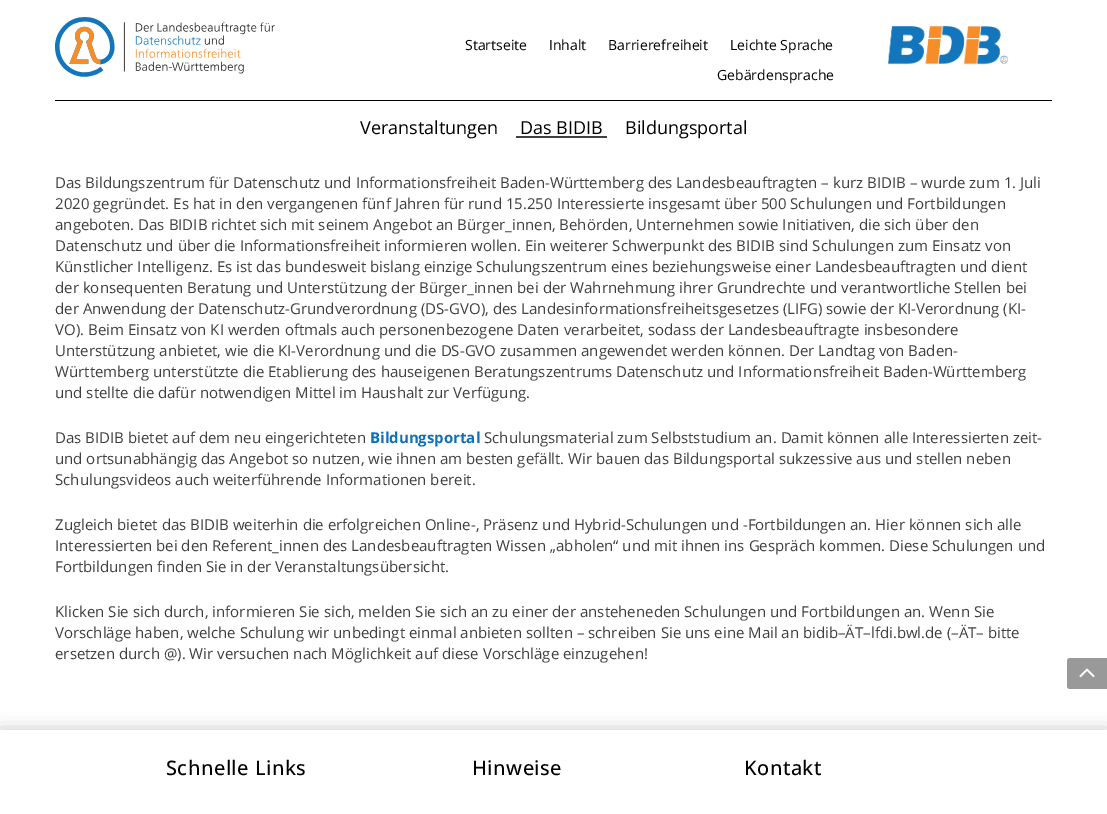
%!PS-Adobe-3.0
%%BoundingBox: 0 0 1107 814
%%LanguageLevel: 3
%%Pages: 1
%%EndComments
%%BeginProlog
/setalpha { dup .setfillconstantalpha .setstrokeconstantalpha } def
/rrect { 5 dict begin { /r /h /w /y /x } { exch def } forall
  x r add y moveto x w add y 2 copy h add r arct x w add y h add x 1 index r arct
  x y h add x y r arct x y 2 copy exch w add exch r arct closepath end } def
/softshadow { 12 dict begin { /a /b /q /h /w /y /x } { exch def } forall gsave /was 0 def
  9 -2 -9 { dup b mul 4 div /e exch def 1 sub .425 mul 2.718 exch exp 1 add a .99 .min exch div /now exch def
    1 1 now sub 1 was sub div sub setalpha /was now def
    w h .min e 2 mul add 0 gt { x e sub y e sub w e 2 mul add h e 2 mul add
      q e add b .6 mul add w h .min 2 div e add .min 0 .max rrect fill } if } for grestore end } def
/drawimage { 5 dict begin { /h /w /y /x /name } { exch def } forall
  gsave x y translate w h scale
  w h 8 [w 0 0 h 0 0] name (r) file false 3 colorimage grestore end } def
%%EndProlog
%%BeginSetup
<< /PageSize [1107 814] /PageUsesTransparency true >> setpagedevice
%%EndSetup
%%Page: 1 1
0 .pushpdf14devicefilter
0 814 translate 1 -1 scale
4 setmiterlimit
1 setgray
0 0 1107 814 rectfill
0 setgray
55 100 997 1 rectfill
(images/1.raw) 55 17 220 60 drawimage
(images/2.raw) 887 26 121 39 drawimage
0.251 setgray
516 136 91 2 rectfill
0 setgray
0 732 1107 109 0 9 0.3 softshadow
1 setgray
0 730 1107 84 rectfill
0.6 setgray
newpath 1070 658 moveto 1107 658 lineto 1107 689 lineto 1070 689 lineto 1068.5 689 1067 687.5 1067 686 curveto 1067 661 lineto 1067 659.5 1068.5 658 1070 658 curveto closepath fill
(images/3.raw) 1079 668 16 10 drawimage
/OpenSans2-Regular [14 0 0 -14 0 0] selectfont
0 setgray
465 50 moveto (Startseite) show
549 50 moveto (Inhalt) show
608 50 moveto (Barrierefreiheit) show
730 50 moveto (Leichte Sprache) show
717 80 moveto (Gebärdensprache) show
/OpenSans2-Regular [18 0 0 -18 0 0] selectfont
360 134 moveto (Veranstaltungen) show
520 134 moveto (Das BIDIB) show
625 134 moveto (Bildungsportal) show
/OpenSans-Regular [15 0 0 -15 0 0] selectfont
0.251 setgray
55 188 moveto (Das Bildungszentrum für Datenschutz und Informationsfreiheit Baden-Württemberg des Landesbeauftragten – kurz BIDIB – wurde zum 1. Juli) show
55 209 moveto (2020 gegründet. Es hat in den vergangenen fünf Jahren für rund 15.250 Interessierte insgesamt über 500 Schulungen und Fortbildungen) show
55 230 moveto (angeboten. Das BIDIB richtet sich mit seinem Angebot an Bürger_innen, Behörden, Unternehmen sowie Initiativen, die sich über den) show
55 251 moveto (Datenschutz und über die Informationsfreiheit informieren wollen. Ein weiterer Schwerpunkt des BIDIB sind Schulungen zum Einsatz von) show
55 272 moveto (Künstlicher Intelligenz. Es ist das bundesweit bislang einzige Schulungszentrum eines beziehungsweise einer Landesbeauftragten und dient) show
55 293 moveto (der konsequenten Beratung und Unterstützung der Bürger_innen bei der Wahrnehmung ihrer Grundrechte und verantwortliche Stellen bei) show
55 314 moveto (der Anwendung der Datenschutz-Grundverordnung \(DS-GVO\), des Landesinformationsfreiheitsgesetzes \(LIFG\) sowie der KI-Verordnung \(KI-) show
55 335 moveto (VO\). Beim Einsatz von KI werden oftmals auch personenbezogene Daten verarbeitet, sodass der Landesbeauftragte insbesondere) show
55 356 moveto (Unterstützung anbietet, wie die KI-Verordnung und die DS-GVO zusammen angewendet werden können. Der Landtag von Baden-) show
55 377 moveto (Württemberg unterstützte die Etablierung des hauseigenen Beratungszentrums Datenschutz und Informationsfreiheit Baden-Württemberg) show
55 398 moveto (und stellte die dafür notwendigen Mittel im Haushalt zur Verfügung.) show
55 443 moveto (Das BIDIB bietet auf dem neu eingerichteten) show
/OpenSans-Bold [15 0 0 -15 0 0] selectfont
0.059 0.439 0.718 setrgbcolor
370 443 moveto (Bildungsportal) show
/OpenSans-Regular [15 0 0 -15 0 0] selectfont
0.251 setgray
484 443 moveto (Schulungsmaterial zum Selbststudium an. Damit können alle Interessierten zeit-) show
55 464 moveto (und ortsunabhängig das Angebot so nutzen, wie ihnen am besten gefällt. Wir bauen das Bildungsportal sukzessive aus und stellen neben) show
55 485 moveto (Schulungsvideos auch weiterführende Informationen bereit.) show
55 530 moveto (Zugleich bietet das BIDIB weiterhin die erfolgreichen Online-, Präsenz und Hybrid-Schulungen und -Fortbildungen an. Hier können sich alle) show
55 551 moveto (Interessierten bei den Referent_innen des Landesbeauftragten Wissen „abholen“ und mit ihnen ins Gespräch kommen. Diese Schulungen und) show
55 572 moveto (Fortbildungen finden Sie in der Veranstaltungsübersicht.) show
55 617 moveto (Klicken Sie sich durch, informieren Sie sich, melden Sie sich an zu einer der ansteheneden Schulungen und Fortbildungen an. Wenn Sie) show
55 638 moveto (Vorschläge haben, welche Schulung wir unbedingt einmal anbieten sollten – schreiben Sie uns eine Mail an bidib–ÄT–lfdi.bwl.de \(–ÄT– bitte) show
55 659 moveto (ersetzen durch @\). Wir versuchen nach Möglichkeit auf diese Vorschläge einzugehen!) show
/OpenSans-Medium [20 0 0 -20 0 0] selectfont
0 setgray
166 775 moveto 0.5 0 (Schnelle Links) ashow
472 775 moveto 0.5 0 (Hinweise) ashow
744 775 moveto 0.5 0 (Kontakt) ashow
.poppdf14devicefilter showpage
%%EOF
